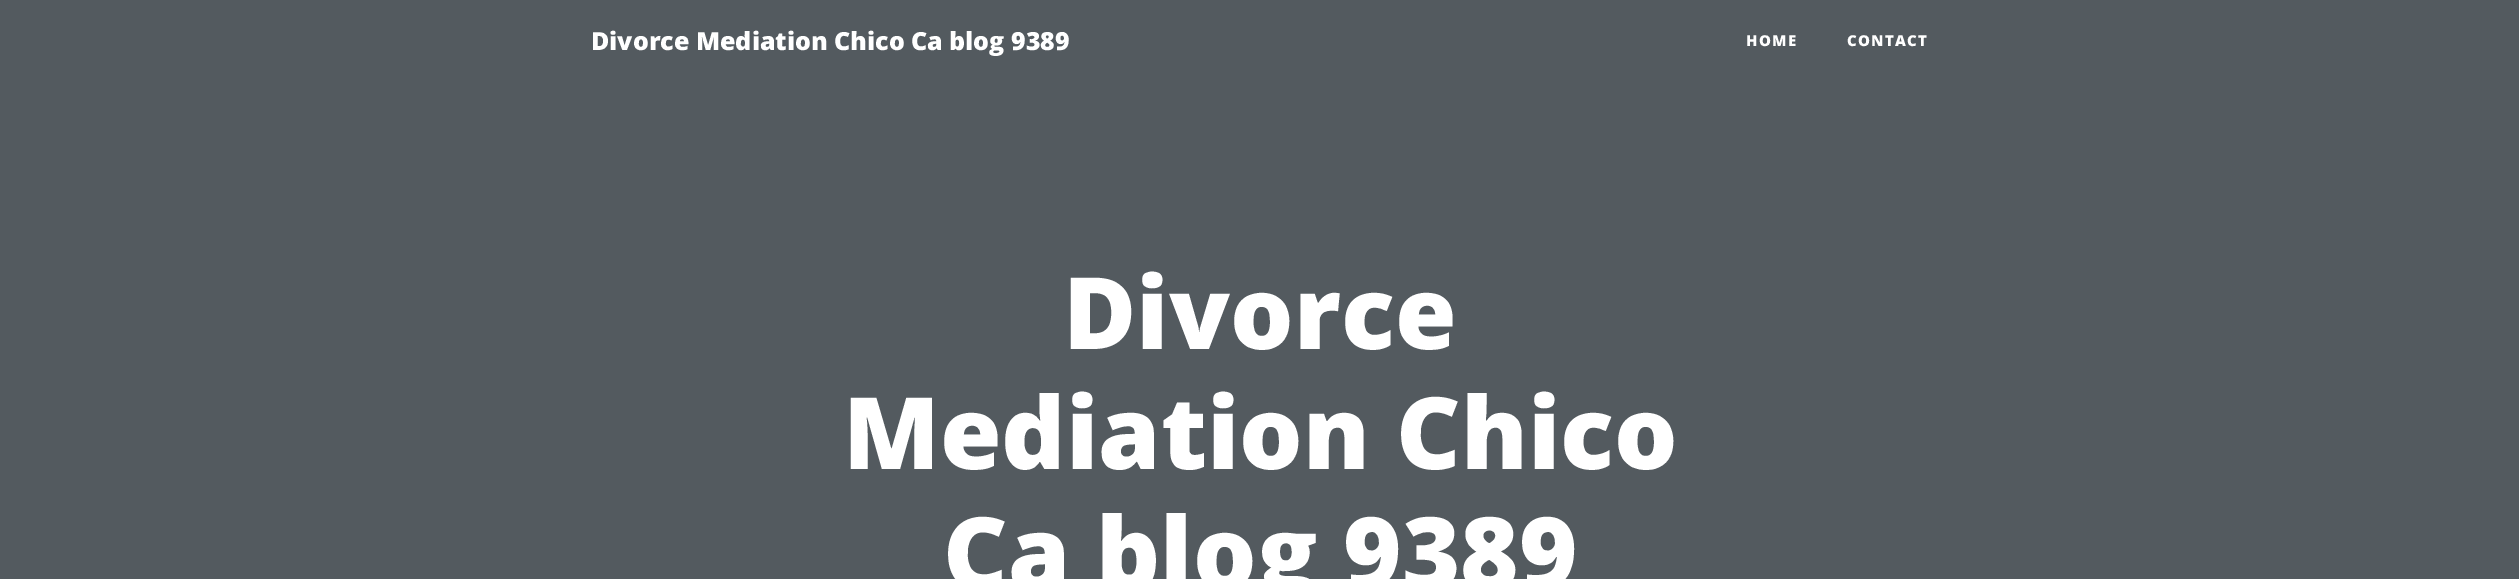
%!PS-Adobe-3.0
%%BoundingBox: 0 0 2519 579
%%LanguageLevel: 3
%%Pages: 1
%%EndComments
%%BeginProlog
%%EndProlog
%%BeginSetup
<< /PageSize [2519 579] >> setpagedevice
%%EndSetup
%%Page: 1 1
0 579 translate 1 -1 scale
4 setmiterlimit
0.325 0.353 0.373 setrgbcolor
0 0 2519 579 rectfill
/OpenSans-ExtraBold [25 0 0 -25 0 0] selectfont
1 setgray
591 50 moveto (Divorce Mediation Chico Ca blog 9389) show
/OpenSans-ExtraBold [15 0 0 -15 0 0] selectfont
1746 46 moveto 1.25 0 (HOME) ashow
1847 46 moveto 1.25 0 (CONTACT) ashow
/OpenSans-ExtraBold [100 0 0 -100 0 0] selectfont
1063 349 moveto (Divorce) show
843 469 moveto (Mediation Chico) show
943 589 moveto (Ca blog 9389) show
showpage
%%EOF
